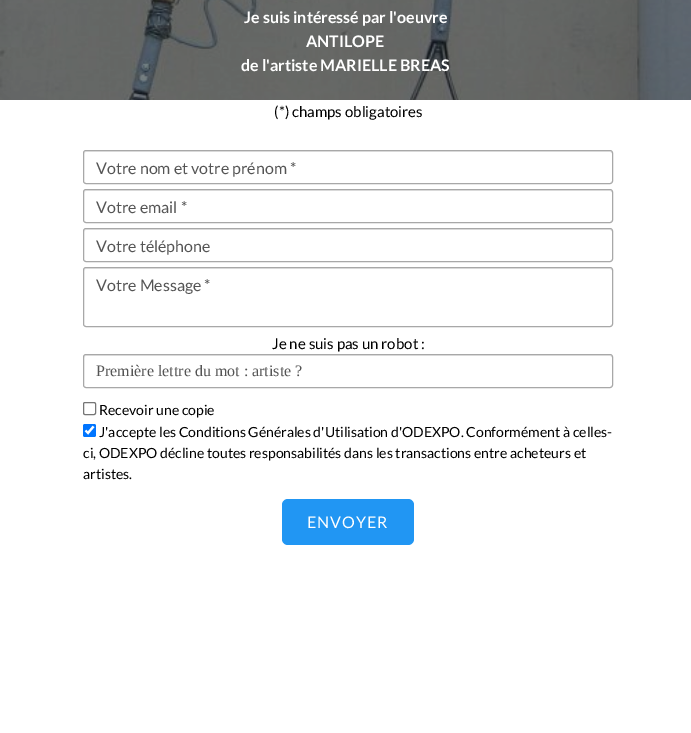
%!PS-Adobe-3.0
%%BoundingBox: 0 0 691 733
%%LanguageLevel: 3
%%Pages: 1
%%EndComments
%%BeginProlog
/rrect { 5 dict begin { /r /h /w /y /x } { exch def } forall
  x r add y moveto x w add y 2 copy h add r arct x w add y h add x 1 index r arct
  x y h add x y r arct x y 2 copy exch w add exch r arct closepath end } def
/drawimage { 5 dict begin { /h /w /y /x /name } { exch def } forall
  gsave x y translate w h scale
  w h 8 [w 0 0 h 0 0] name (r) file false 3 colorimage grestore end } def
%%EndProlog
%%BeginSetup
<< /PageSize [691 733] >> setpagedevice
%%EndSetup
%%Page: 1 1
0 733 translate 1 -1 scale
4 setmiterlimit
1 setgray
0 0 691 733 rectfill
(images/1.raw) 0 0 691 100 drawimage
0.925 setgray
newpath 86 152 moveto 610 152 lineto 611 152 612 153 612 154 curveto 612 153 612 151 610 151 curveto 86 151 lineto 84 152 lineto 84 154 lineto 84 153 85 152 86 152 curveto closepath fill
0.659 setgray
83.5 150.5 529 33 2.5 rrect stroke
0.925 setgray
newpath 86 191 moveto 610 191 lineto 611 191 612 192 612 193 curveto 612 192 612 190 610 190 curveto 86 190 lineto 84 191 lineto 84 193 lineto 84 192 85 191 86 191 curveto closepath fill
0.659 setgray
83.5 189.5 529 33 2.5 rrect stroke
0.925 setgray
newpath 86 230 moveto 610 230 lineto 611 230 612 231 612 232 curveto 612 231 612 229 610 229 curveto 86 229 lineto 84 230 lineto 84 232 lineto 84 231 85 230 86 230 curveto closepath fill
0.659 setgray
83.5 228.5 529 33 2.5 rrect stroke
0.925 setgray
newpath 86 269 moveto 610 269 lineto 611 269 612 270 612 271 curveto 612 270 612 268 610 268 curveto 86 268 lineto 84 269 lineto 84 271 lineto 84 270 85 269 86 269 curveto closepath fill
0.659 setgray
83.5 267.5 529 59 2.5 rrect stroke
0.925 setgray
newpath 86 356 moveto 610 356 lineto 611 356 612 357 612 358 curveto 612 357 612 355 610 355 curveto 86 355 lineto 84 356 lineto 84 358 lineto 84 357 85 356 86 356 curveto closepath fill
0.659 setgray
83.5 354.5 529 33 2.5 rrect stroke
0.463 setgray
83.5 402.5 12 12 1.5 rrect stroke
0 0.459 1 setrgbcolor
83 424 13 13 2 rrect fill
1 setgray
2.1 setlinewidth
newpath 85.5 430.5 moveto 88 433 lineto 93.5 426.5 lineto stroke
0.129 0.588 0.953 setrgbcolor
282 499 132 46 6 rrect fill
/Lato-Bold [16 0 0 -16 0 0] selectfont
1 setgray
244 23 moveto (Je suis intéressé par l'oeuvre) show
306 47 moveto (ANTILOPE) show
241 71 moveto (de l'artiste MARIELLE BREAS) show
/Lato-Regular [15 0 0 -15 0 0] selectfont
0 setgray
274 117 moveto (\(*\) champs obligatoires) show
/Lato-Regular [16 0 0 -16 0 0] selectfont
0.333 setgray
96 174 moveto (Votre nom et votre prénom *) show
96 213 moveto (Votre email *) show
96 252 moveto (Votre téléphone) show
96 291 moveto (Votre Message *) show
/Lato-Regular [15 0 0 -15 0 0] selectfont
0 setgray
272 349 moveto (Je ne suis pas un robot :) show
/LiberationSerif-Regular [16 0 0 -16 0 0] selectfont
0.333 setgray
96 376 moveto (Première lettre du mot : artiste ?) show
/Lato-Regular [14 0 0 -14 0 0] selectfont
0 setgray
99 415 moveto (Recevoir une copie) show
99 437 moveto (J'accepte les Conditions Générales d'Utilisation d'ODEXPO. Conformément à celles-) show
83 458 moveto (ci, ODEXPO décline toutes responsabilités dans les transactions entre acheteurs et) show
83 479 moveto (artistes.) show
/Lato-Regular [16 0 0 -16 0 0] selectfont
1 setgray
307 528 moveto 1 0 (ENVOYER) ashow
showpage
%%EOF
